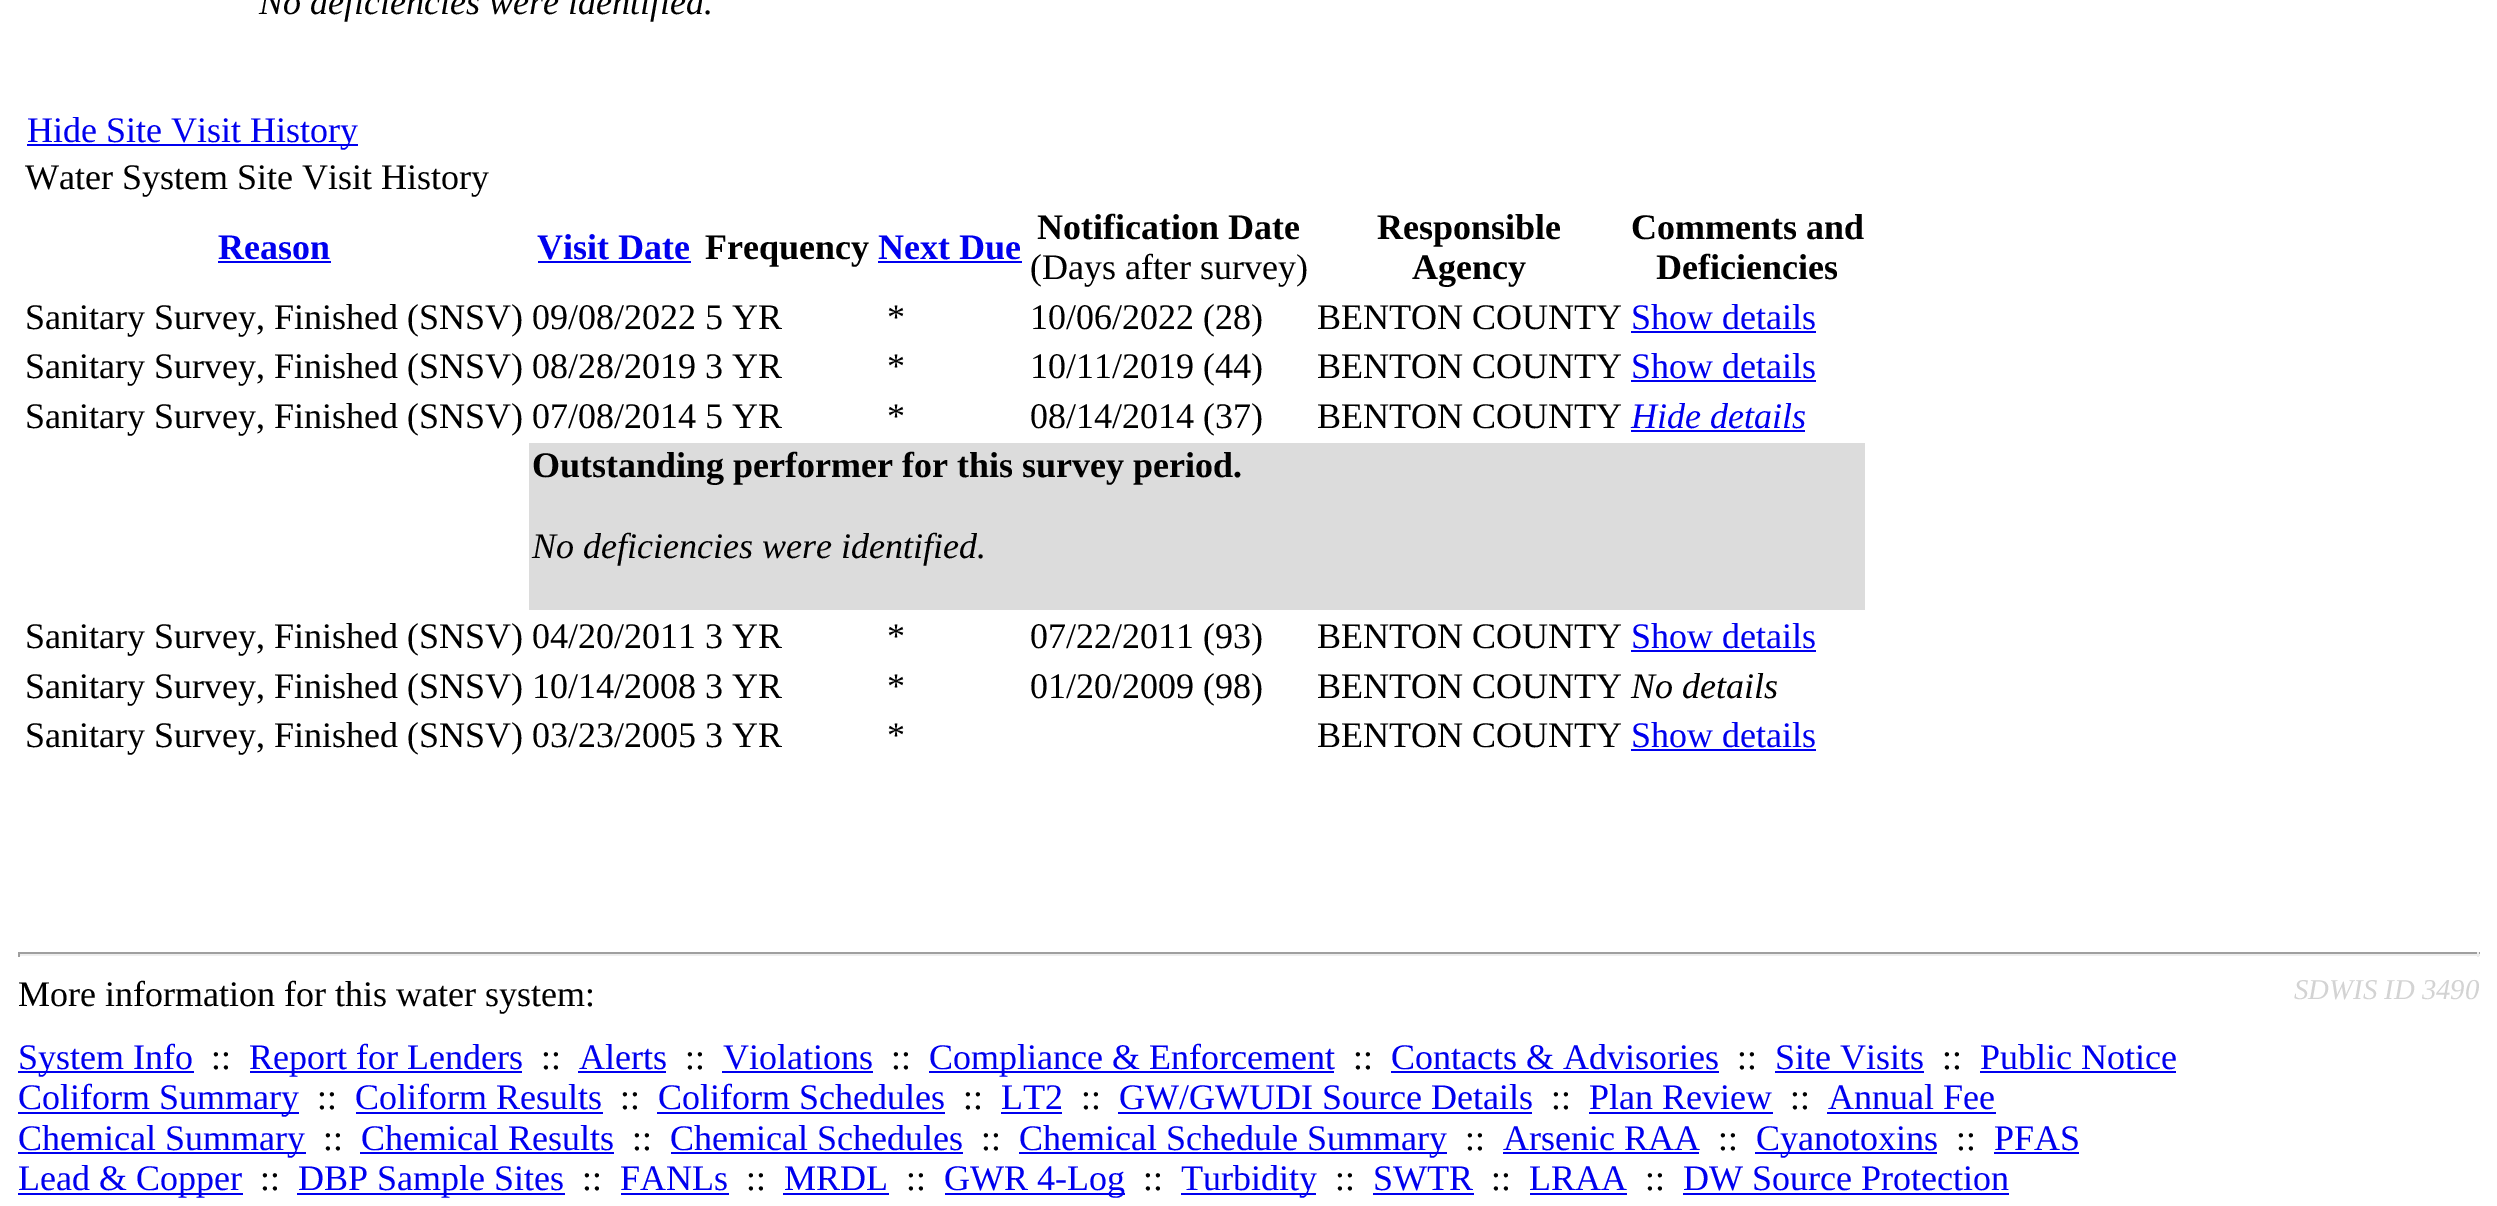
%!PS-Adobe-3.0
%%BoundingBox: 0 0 2497 1206
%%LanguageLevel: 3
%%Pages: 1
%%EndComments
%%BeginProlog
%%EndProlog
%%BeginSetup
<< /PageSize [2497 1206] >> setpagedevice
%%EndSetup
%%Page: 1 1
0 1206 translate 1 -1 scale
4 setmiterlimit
1 setgray
0 0 2497 1206 rectfill
0 0 0.933 setrgbcolor
27 144 331 2 rectfill
218 261 113 2 rectfill
538 261 153 2 rectfill
878 261 144 2 rectfill
1631 331 185 2 rectfill
1631 380 185 2 rectfill
1631 430 174 2 rectfill
0.863 setgray
529 443 1336 167 rectfill
0 0 0.933 setrgbcolor
1631 650 185 2 rectfill
1631 749 185 2 rectfill
0.624 setgray
18 952 2462 2 rectfill
0.933 setgray
2477 952 2 5 rectfill
18 954 2462 2 rectfill
0.624 setgray
18 952 2 5 rectfill
0 0 0.933 setrgbcolor
18 1071 176 2 rectfill
250 1071 272 2 rectfill
578 1071 88 2 rectfill
722 1071 151 2 rectfill
929 1071 405 2 rectfill
1391 1071 328 2 rectfill
1775 1071 149 2 rectfill
1980 1071 196 2 rectfill
18 1112 281 2 rectfill
356 1112 247 2 rectfill
657 1112 288 2 rectfill
1001 1112 61 2 rectfill
1118 1112 414 2 rectfill
1589 1112 184 2 rectfill
1827 1112 169 2 rectfill
18 1152 288 2 rectfill
360 1152 254 2 rectfill
671 1152 292 2 rectfill
1019 1152 428 2 rectfill
1503 1152 196 2 rectfill
1755 1152 182 2 rectfill
1994 1152 85 2 rectfill
18 1193 225 2 rectfill
297 1193 268 2 rectfill
621 1193 108 2 rectfill
783 1193 106 2 rectfill
945 1193 180 2 rectfill
1181 1193 135 2 rectfill
1373 1193 101 2 rectfill
1530 1193 97 2 rectfill
1683 1193 326 2 rectfill
/LiberationSerif-Italic [36 0 0 -36 0 0] selectfont
0 setgray
259 14 moveto (No deficiencies were identified.) show
/LiberationSerif-Regular [36 0 0 -36 0 0] selectfont
0 0 0.933 setrgbcolor
27 142 moveto (Hide Site Visit History) show
0 setgray
25 189 moveto (Water System Site Visit History) show
/LiberationSerif-Bold [36 0 0 -36 0 0] selectfont
0 0 0.933 setrgbcolor
218 259 moveto (Reason) show
537 259 moveto (Visit Date) show
0 setgray
705 259 moveto (Frequency) show
0 0 0.933 setrgbcolor
878 259 moveto (Next Due) show
0 setgray
1037 239 moveto (Notification Date) show
/LiberationSerif-Regular [36 0 0 -36 0 0] selectfont
1030 279 moveto (\(Days after survey\)) show
/LiberationSerif-Bold [36 0 0 -36 0 0] selectfont
1377 239 moveto (Responsible) show
1412 279 moveto (Agency) show
1631 239 moveto (Comments and) show
1656 279 moveto (Deficiencies) show
/LiberationSerif-Regular [36 0 0 -36 0 0] selectfont
25 329 moveto (Sanitary Survey, Finished \(SNSV\) 09/08/2022 5 YR) show
887 329 moveto (*) show
1030 329 moveto (10/06/2022 \(28\)) show
1317 329 moveto (BENTON COUNTY) show
0 0 0.933 setrgbcolor
1631 329 moveto (Show details) show
0 setgray
25 378 moveto (Sanitary Survey, Finished \(SNSV\) 08/28/2019 3 YR) show
887 378 moveto (*) show
1030 378 moveto (10/11/2019 \(44\)) show
1317 378 moveto (BENTON COUNTY) show
0 0 0.933 setrgbcolor
1631 378 moveto (Show details) show
0 setgray
25 428 moveto (Sanitary Survey, Finished \(SNSV\) 07/08/2014 5 YR) show
887 428 moveto (*) show
1030 428 moveto (08/14/2014 \(37\)) show
1317 428 moveto (BENTON COUNTY) show
/LiberationSerif-Italic [36 0 0 -36 0 0] selectfont
0 0 0.933 setrgbcolor
1631 428 moveto (Hide details) show
/LiberationSerif-Bold [36 0 0 -36 0 0] selectfont
0 setgray
532 477 moveto (Outstanding performer for this survey period.) show
/LiberationSerif-Italic [36 0 0 -36 0 0] selectfont
532 558 moveto (No deficiencies were identified.) show
/LiberationSerif-Regular [36 0 0 -36 0 0] selectfont
25 648 moveto (Sanitary Survey, Finished \(SNSV\) 04/20/2011 3 YR) show
887 648 moveto (*) show
1030 648 moveto (07/22/2011 \(93\)) show
1317 648 moveto (BENTON COUNTY) show
0 0 0.933 setrgbcolor
1631 648 moveto (Show details) show
0 setgray
25 698 moveto (Sanitary Survey, Finished \(SNSV\) 10/14/2008 3 YR) show
887 698 moveto (*) show
1030 698 moveto (01/20/2009 \(98\)) show
1317 698 moveto (BENTON COUNTY) show
/LiberationSerif-Italic [36 0 0 -36 0 0] selectfont
1631 698 moveto (No details) show
/LiberationSerif-Regular [36 0 0 -36 0 0] selectfont
25 747 moveto (Sanitary Survey, Finished \(SNSV\) 03/23/2005 3 YR) show
887 747 moveto (*) show
1317 747 moveto (BENTON COUNTY) show
0 0 0.933 setrgbcolor
1631 747 moveto (Show details) show
0 setgray
18 1006 moveto (More information for this water system:) show
/LiberationSerif-Italic [28.75 0 0 -28.75 0 0] selectfont
0.827 setgray
2294 999 moveto (SDWIS ID 3490) show
/LiberationSerif-Regular [36 0 0 -36 0 0] selectfont
0 0 0.933 setrgbcolor
18 1069 moveto (System Info) show
0 setgray
211 1069 moveto (::) show
0 0 0.933 setrgbcolor
249 1069 moveto (Report for Lenders) show
0 setgray
541 1069 moveto (::) show
0 0 0.933 setrgbcolor
579 1069 moveto (Alerts) show
0 setgray
685 1069 moveto (::) show
0 0 0.933 setrgbcolor
723 1069 moveto (Violations) show
0 setgray
891 1069 moveto (::) show
0 0 0.933 setrgbcolor
929 1069 moveto (Compliance & Enforcement) show
0 setgray
1353 1069 moveto (::) show
0 0 0.933 setrgbcolor
1391 1069 moveto (Contacts & Advisories) show
0 setgray
1737 1069 moveto (::) show
0 0 0.933 setrgbcolor
1775 1069 moveto (Site Visits) show
0 setgray
1942 1069 moveto (::) show
0 0 0.933 setrgbcolor
1980 1069 moveto (Public Notice) show
18 1109 moveto (Coliform Summary) show
0 setgray
317 1109 moveto (::) show
0 0 0.933 setrgbcolor
355 1109 moveto (Coliform Results) show
0 setgray
620 1109 moveto (::) show
0 0 0.933 setrgbcolor
658 1109 moveto (Coliform Schedules) show
0 setgray
963 1109 moveto (::) show
0 0 0.933 setrgbcolor
1001 1109 moveto (LT2) show
0 setgray
1081 1109 moveto (::) show
0 0 0.933 setrgbcolor
1119 1109 moveto (GW/GWUDI Source Details) show
0 setgray
1551 1109 moveto (::) show
0 0 0.933 setrgbcolor
1589 1109 moveto (Plan Review) show
0 setgray
1790 1109 moveto (::) show
0 0 0.933 setrgbcolor
1828 1109 moveto (Annual Fee) show
18 1150 moveto (Chemical Summary) show
0 setgray
323 1150 moveto (::) show
0 0 0.933 setrgbcolor
361 1150 moveto (Chemical Results) show
0 setgray
632 1150 moveto (::) show
0 0 0.933 setrgbcolor
670 1150 moveto (Chemical Schedules) show
0 setgray
981 1150 moveto (::) show
0 0 0.933 setrgbcolor
1019 1150 moveto (Chemical Schedule Summary) show
0 setgray
1465 1150 moveto (::) show
0 0 0.933 setrgbcolor
1503 1150 moveto (Arsenic RAA) show
0 setgray
1718 1150 moveto (::) show
0 0 0.933 setrgbcolor
1756 1150 moveto (Cyanotoxins) show
0 setgray
1956 1150 moveto (::) show
0 0 0.933 setrgbcolor
1994 1150 moveto (PFAS) show
18 1190 moveto (Lead & Copper) show
0 setgray
260 1190 moveto (::) show
0 0 0.933 setrgbcolor
298 1190 moveto (DBP Sample Sites) show
0 setgray
582 1190 moveto (::) show
0 0 0.933 setrgbcolor
620 1190 moveto (FANLs) show
0 setgray
746 1190 moveto (::) show
0 0 0.933 setrgbcolor
784 1190 moveto (MRDL) show
0 setgray
906 1190 moveto (::) show
0 0 0.933 setrgbcolor
944 1190 moveto (GWR 4-Log) show
0 setgray
1143 1190 moveto (::) show
0 0 0.933 setrgbcolor
1181 1190 moveto (Turbidity) show
0 setgray
1335 1190 moveto (::) show
0 0 0.933 setrgbcolor
1373 1190 moveto (SWTR) show
0 setgray
1491 1190 moveto (::) show
0 0 0.933 setrgbcolor
1529 1190 moveto (LRAA) show
0 setgray
1645 1190 moveto (::) show
0 0 0.933 setrgbcolor
1683 1190 moveto (DW Source Protection) show
showpage
%%EOF
